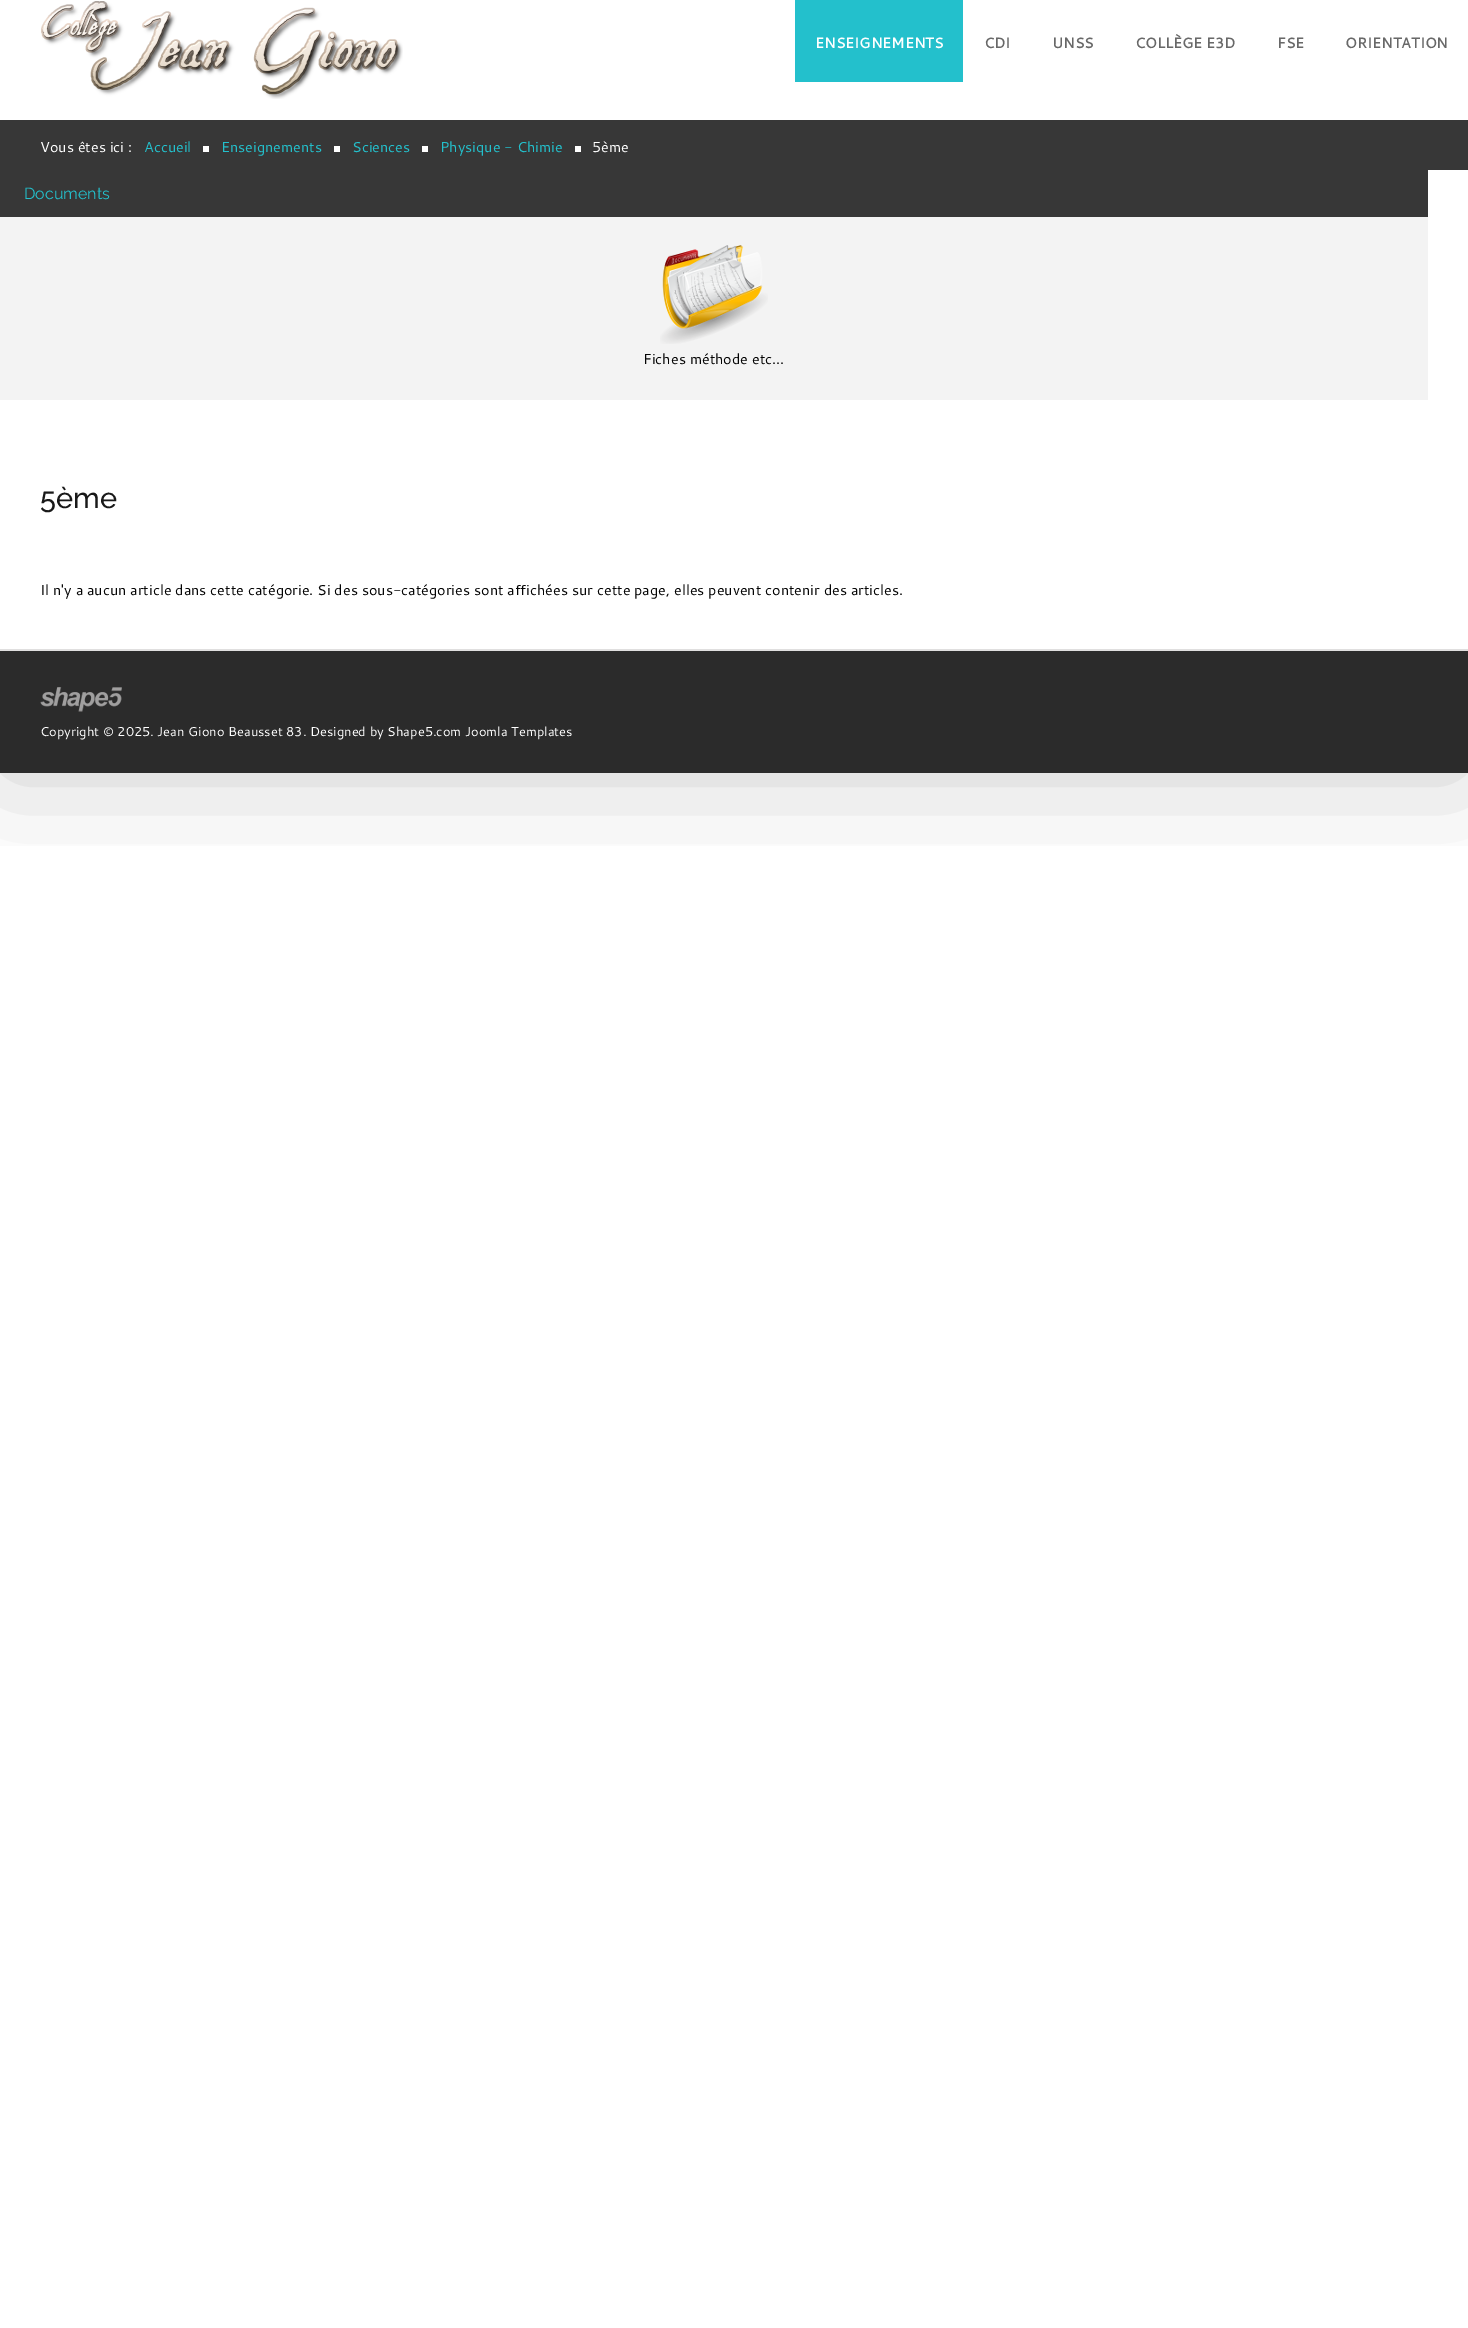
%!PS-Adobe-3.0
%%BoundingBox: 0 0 1468 2328
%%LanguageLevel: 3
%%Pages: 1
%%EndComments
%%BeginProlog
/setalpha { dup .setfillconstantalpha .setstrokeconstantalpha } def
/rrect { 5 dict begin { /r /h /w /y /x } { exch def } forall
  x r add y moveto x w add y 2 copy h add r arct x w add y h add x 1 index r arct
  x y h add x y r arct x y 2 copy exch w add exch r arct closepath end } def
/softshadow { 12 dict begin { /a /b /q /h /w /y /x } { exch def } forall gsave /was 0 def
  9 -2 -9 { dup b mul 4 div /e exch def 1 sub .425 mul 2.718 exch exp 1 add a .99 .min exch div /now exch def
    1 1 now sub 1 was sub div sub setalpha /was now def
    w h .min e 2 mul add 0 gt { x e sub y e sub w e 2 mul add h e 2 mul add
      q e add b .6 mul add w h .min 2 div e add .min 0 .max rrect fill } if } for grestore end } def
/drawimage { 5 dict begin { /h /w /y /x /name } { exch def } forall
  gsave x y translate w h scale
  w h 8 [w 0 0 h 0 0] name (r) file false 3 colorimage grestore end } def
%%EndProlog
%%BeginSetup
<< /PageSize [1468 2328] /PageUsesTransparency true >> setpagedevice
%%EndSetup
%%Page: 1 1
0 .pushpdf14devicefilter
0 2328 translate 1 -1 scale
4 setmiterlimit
1 setgray
0 0 1468 2328 rectfill
gsave
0 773 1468 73 rectclip
0 setgray
0 0 1468 773 0 57 0.2 softshadow
grestore
(images/1.raw) 41 1 362 98 drawimage
0.137 0.753 0.8 setrgbcolor
795 0 168 82 rectfill
0.216 setgray
0 120 1468 50 rectfill
1 setgray
203 146 6 6 rectfill
334 146 6 6 rectfill
422 146 6 6 rectfill
575 146 6 6 rectfill
0.878 0.875 0.875 setrgbcolor
0 649 1468 2 rectfill
0.953 setgray
0 217 1428 183 rectfill
0.216 setgray
0 170 1428 47 rectfill
(images/2.raw) 660 245 108 99 drawimage
0.169 setgray
0 651 1468 122 rectfill
(images/3.raw) 40 687 82 25 drawimage
/Cantarell-Bold [14.4 0 0 -14.4 0 0] selectfont
1 setgray
815 48 moveto (ENSEIGNEMENTS) show
0.408 setgray
984 48 moveto (CDI) show
1052 48 moveto (UNSS) show
1135 48 moveto (COLLÈGE E3D) show
1277 48 moveto (FSE) show
1345 48 moveto (ORIENTATION) show
/Cantarell-Regular [14.4 0 0 -14.4 0 0] selectfont
1 setgray
40 152 moveto (Vous êtes ici :) show
0.137 0.753 0.8 setrgbcolor
144 152 moveto (Accueil) show
221 152 moveto (Enseignements) show
352 152 moveto (Sciences) show
440 152 moveto (Physique - Chimie) show
1 setgray
592 152 moveto (5ème) show
/Raleway-Regular [16 0 0 -16 0 0] selectfont
0.137 0.753 0.8 setrgbcolor
24 199 moveto (Documents) show
/Cantarell-Regular [14.4 0 0 -14.4 0 0] selectfont
0.016 setgray
643 364 moveto (Fiches méthode etc...) show
/Raleway-Medium [29 0 0 -29 0 0] selectfont
0.098 setgray
40 508 moveto (5ème) show
/Cantarell-Regular [14.4 0 0 -14.4 0 0] selectfont
0.016 setgray
40 595 moveto (Il n'y a aucun article dans cette catégorie. Si des sous-catégories sont affichées sur cette page, elles peuvent contenir des articles.) show
/Cantarell-Regular [12.95 0 0 -12.95 0 0] selectfont
1 setgray
40 736 moveto (Copyright © 2025. Jean Giono Beausset 83. Designed by Shape5.com Joomla Templates) show
.poppdf14devicefilter showpage
%%EOF
